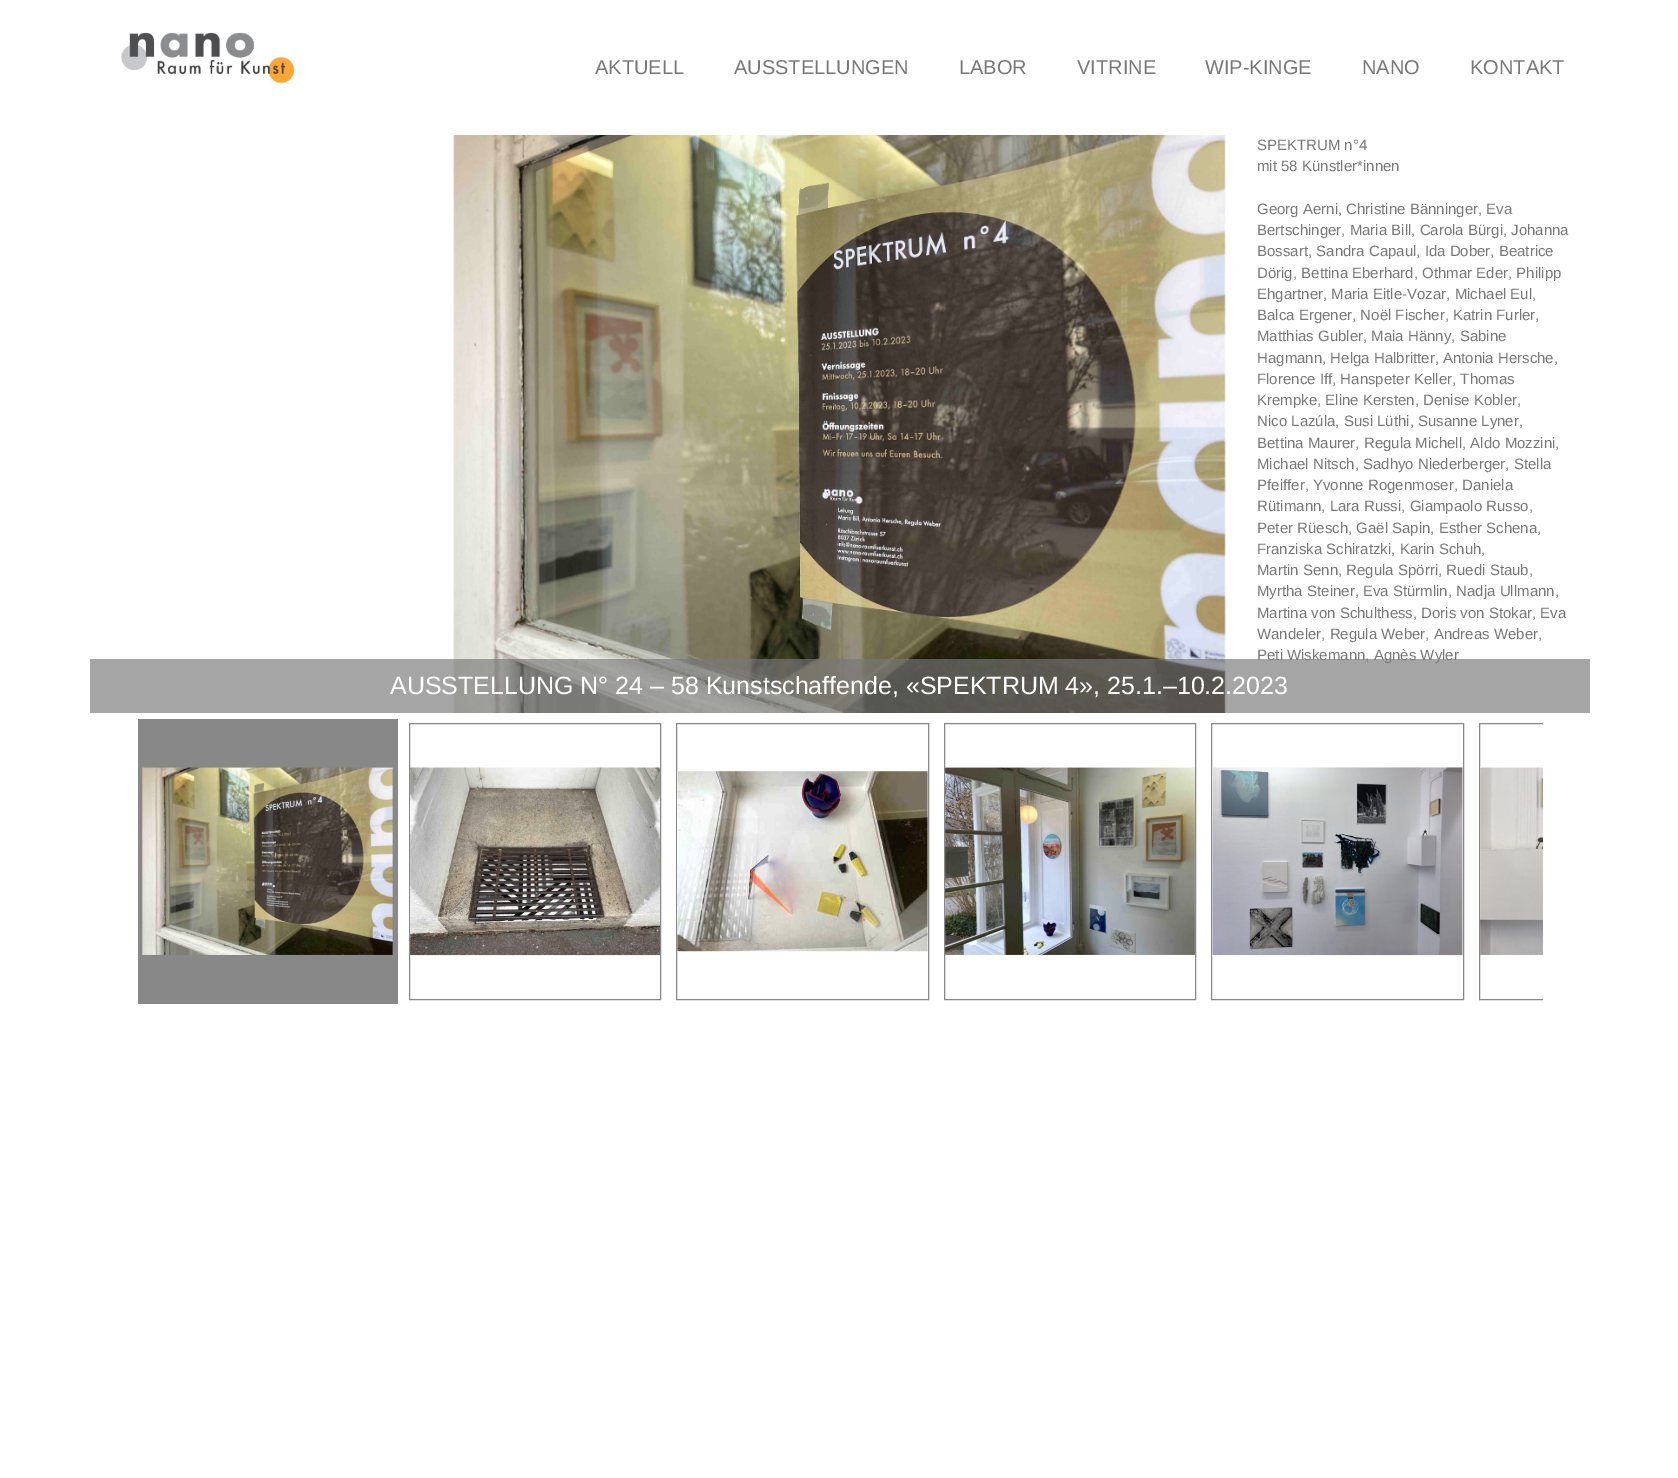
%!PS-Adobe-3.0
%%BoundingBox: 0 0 1678 1478
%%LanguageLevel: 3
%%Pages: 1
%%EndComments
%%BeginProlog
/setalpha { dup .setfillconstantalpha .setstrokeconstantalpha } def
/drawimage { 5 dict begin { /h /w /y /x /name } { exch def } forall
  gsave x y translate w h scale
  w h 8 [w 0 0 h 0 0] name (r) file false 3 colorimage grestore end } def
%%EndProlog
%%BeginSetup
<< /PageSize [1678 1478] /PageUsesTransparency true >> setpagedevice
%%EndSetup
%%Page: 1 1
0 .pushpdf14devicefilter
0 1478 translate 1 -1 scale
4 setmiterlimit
1 setgray
0 0 1678 1478 rectfill
(images/1.raw) 121 32 174 52 drawimage
(images/2.raw) 453 135 773 578 drawimage
0.66 setalpha
0.467 setgray
90 659 1500 54 rectfill
1 setalpha
0.533 setgray
138 719 260 285 rectfill
(images/3.raw) 142 767 251 188 drawimage
409.5 723.5 251 276 rectstroke
(images/4.raw) 410 767 250 189 drawimage
676.5 723.5 252 276 rectstroke
(images/5.raw) 677 771 251 181 drawimage
944.5 723.5 251 276 rectstroke
(images/6.raw) 945 767 250 188 drawimage
1211.5 723.5 252 276 rectstroke
(images/7.raw) 1212 767 251 189 drawimage
gsave
138 713 1405 297 rectclip
1479.5 723.5 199 276 rectstroke
grestore
(images/8.raw) 1480 767 63 188 drawimage
/LiberationSans-Regular [20 0 0 -20 0 0] selectfont
0.467 setgray
595 74 moveto (AKTUELL) show
734 74 moveto (AUSSTELLUNGEN) show
959 74 moveto (LABOR) show
1077 74 moveto (VITRINE) show
1205 74 moveto (WIP-KINGE) show
1362 74 moveto (NANO) show
1470 74 moveto (KONTAKT) show
/LiberationSans-Regular [15 0 0 -15 0 0] selectfont
1257 150 moveto (SPEKTRUM n°4) show
1257 171 moveto (mit 58 Künstler*innen) show
1257 214 moveto (Georg Aerni, Christine Bänninger, Eva) show
1257 235 moveto (Bertschinger, Maria Bill, Carola Bürgi, Johanna) show
1257 256 moveto (Bossart, Sandra Capaul, Ida Dober, Beatrice) show
1257 278 moveto (Dörig, Bettina Eberhard, Othmar Eder, Philipp) show
1257 299 moveto (Ehgartner, Maria Eitle-Vozar, Michael Eul,) show
1257 320 moveto (Balca Ergener, Noël Fischer, Katrin Furler,) show
1257 341 moveto (Matthias Gubler, Maia Hänny, Sabine) show
1257 363 moveto (Hagmann, Helga Halbritter, Antonia Hersche,) show
1257 384 moveto (Florence Iff, Hanspeter Keller, Thomas) show
1257 405 moveto (Krempke, Eline Kersten, Denise Kobler,) show
1257 426 moveto (Nico Lazúla, Susi Lüthi, Susanne Lyner,) show
1257 448 moveto (Bettina Maurer, Regula Michell, Aldo Mozzini,) show
1257 469 moveto (Michael Nitsch, Sadhyo Niederberger, Stella) show
1257 490 moveto (Pfeiffer, Yvonne Rogenmoser, Daniela) show
1257 511 moveto (Rütimann, Lara Russi, Giampaolo Russo,) show
1257 533 moveto (Peter Rüesch, Gaël Sapin, Esther Schena,) show
1257 554 moveto (Franziska Schiratzki, Karin Schuh,) show
1257 575 moveto (Martin Senn, Regula Spörri, Ruedi Staub,) show
1257 596 moveto (Myrtha Steiner, Eva Stürmlin, Nadja Ullmann,) show
1257 618 moveto (Martina von Schulthess, Doris von Stokar, Eva) show
1257 639 moveto (Wandeler, Regula Weber, Andreas Weber,) show
1257 660 moveto (Peti Wiskemann, Agnès Wyler) show
/LiberationSans-Regular [25 0 0 -25 0 0] selectfont
1 setgray
390 694 moveto (AUSSTELLUNG N° 24 – 58 Kunstschaffende, «SPEKTRUM 4», 25.1.–10.2.2023) show
.poppdf14devicefilter showpage
%%EOF
